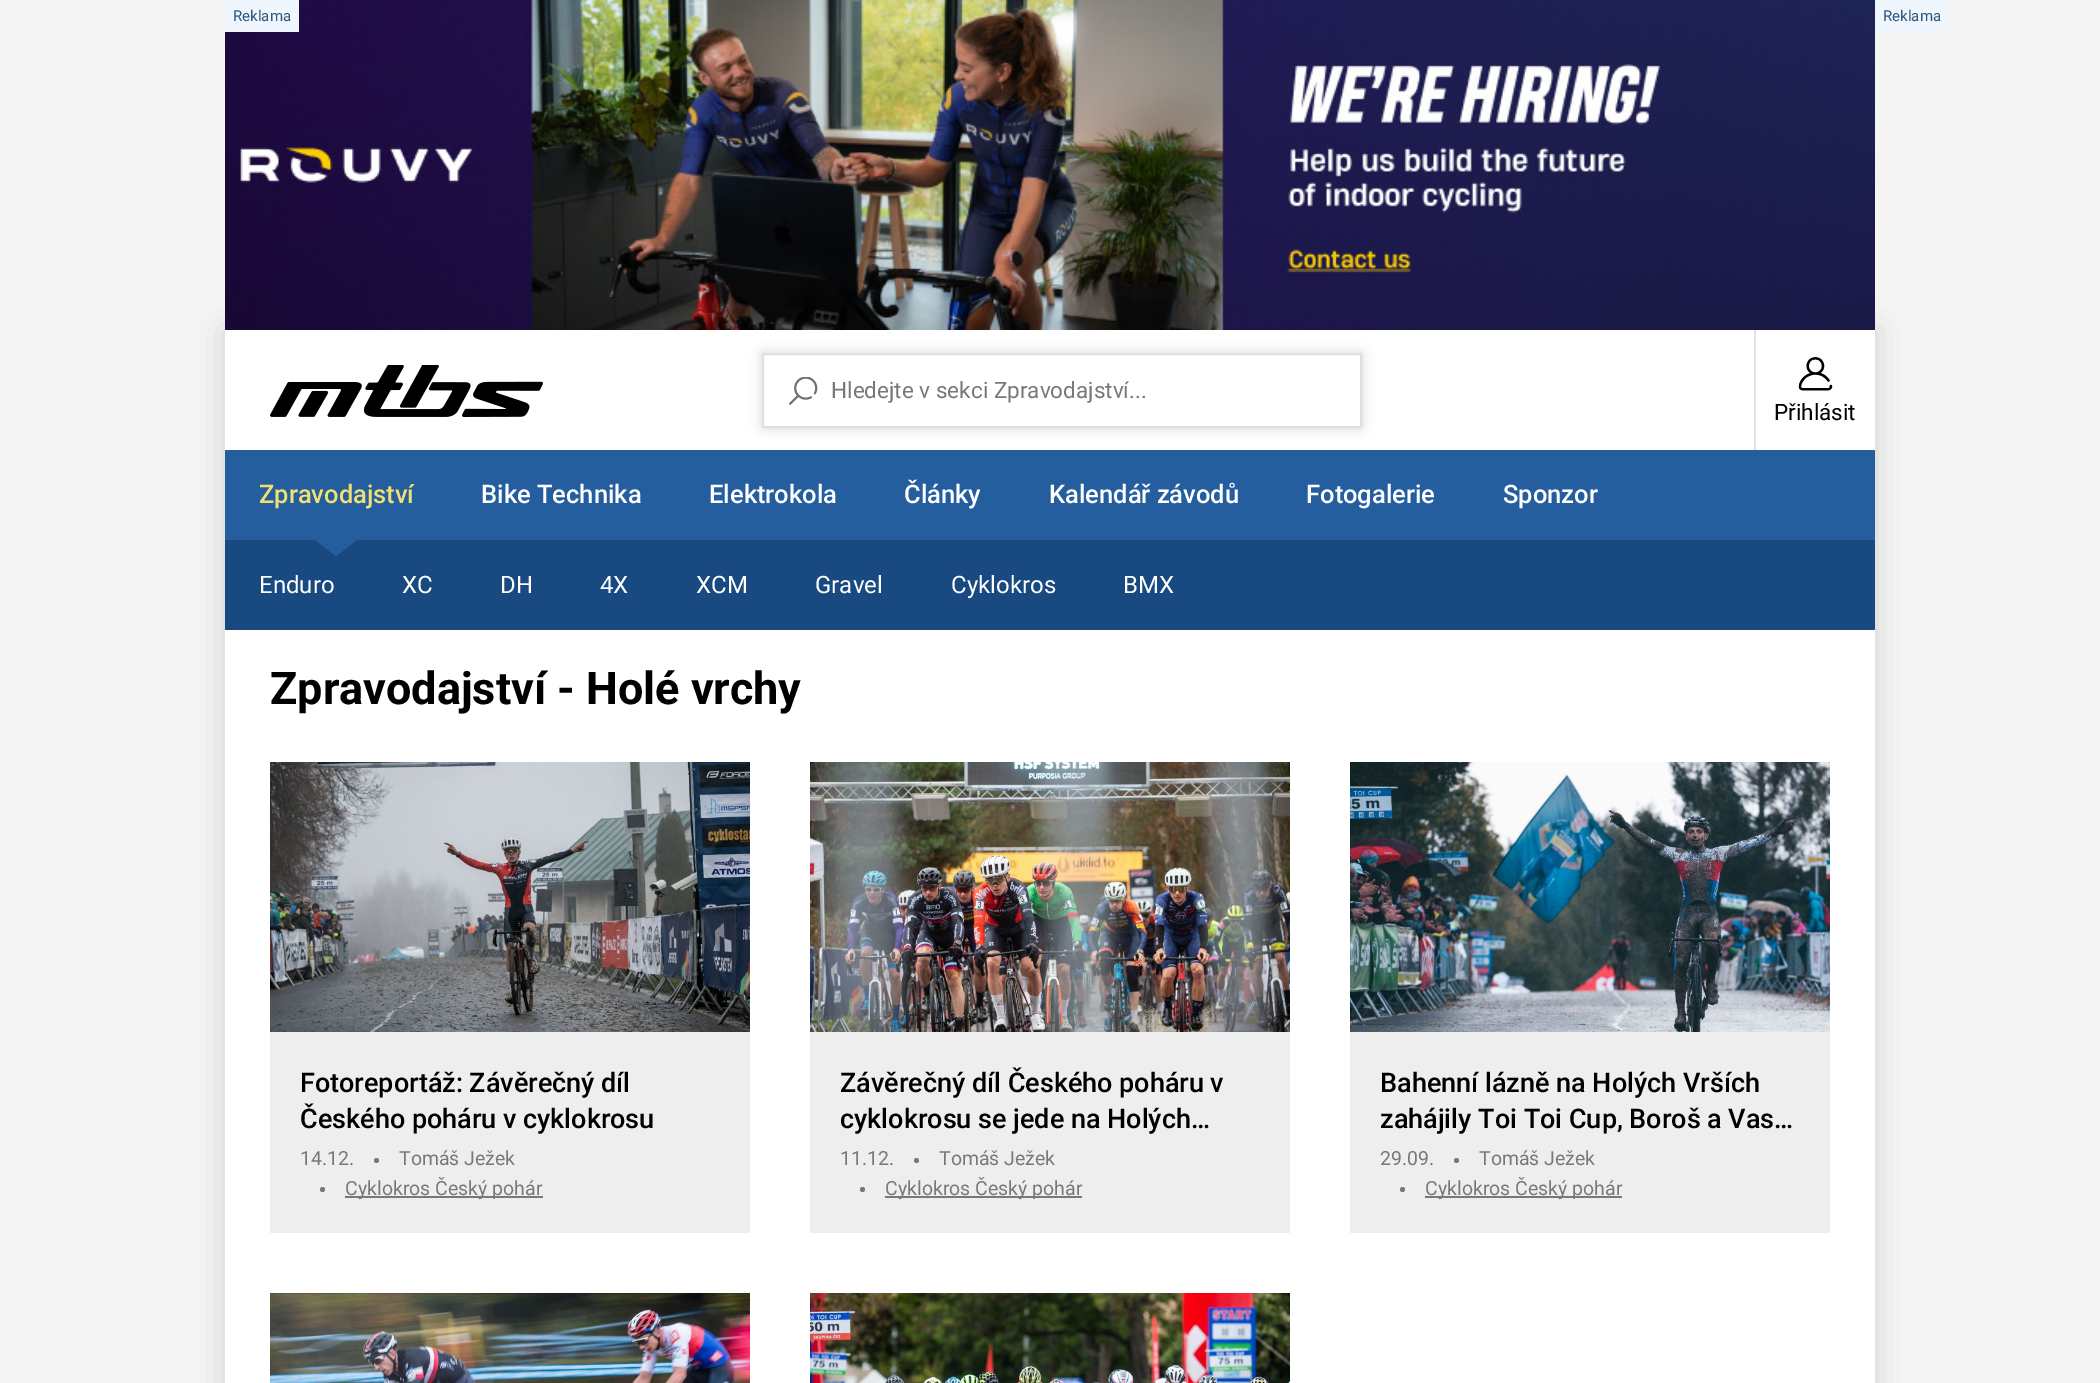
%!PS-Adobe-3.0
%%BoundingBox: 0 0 2100 1383
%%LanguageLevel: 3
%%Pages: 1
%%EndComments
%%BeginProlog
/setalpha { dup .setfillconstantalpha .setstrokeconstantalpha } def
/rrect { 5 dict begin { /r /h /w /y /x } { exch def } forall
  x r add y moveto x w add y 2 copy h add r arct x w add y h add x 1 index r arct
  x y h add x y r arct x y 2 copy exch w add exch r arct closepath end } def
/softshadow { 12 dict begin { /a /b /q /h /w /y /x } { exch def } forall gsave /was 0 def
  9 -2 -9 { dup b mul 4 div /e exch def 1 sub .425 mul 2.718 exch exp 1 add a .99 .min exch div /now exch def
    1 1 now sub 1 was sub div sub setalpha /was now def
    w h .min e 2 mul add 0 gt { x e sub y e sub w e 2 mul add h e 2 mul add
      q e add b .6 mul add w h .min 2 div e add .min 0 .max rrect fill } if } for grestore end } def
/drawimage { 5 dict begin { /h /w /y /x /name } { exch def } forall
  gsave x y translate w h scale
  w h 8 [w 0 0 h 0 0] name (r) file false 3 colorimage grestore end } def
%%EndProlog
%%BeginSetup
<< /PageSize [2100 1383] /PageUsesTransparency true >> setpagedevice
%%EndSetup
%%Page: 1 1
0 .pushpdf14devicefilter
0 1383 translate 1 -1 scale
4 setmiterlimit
0.961 setgray
0 0 2100 1383 rectfill
0 setgray
225 330 1650 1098 0 15 0.15 softshadow
(images/1.raw) 225 0 1650 330 drawimage
0.937 0.965 0.996 setrgbcolor
225 0 74 32 rectfill
1875 0 74 32 rectfill
1 setgray
225 330 1650 1053 rectfill
0 setgray
762 353 600 75 0 6 0.15 softshadow
1 setgray
764 355 596 71 rectfill
(images/2.raw) 789 377 29 28 drawimage
0.878 setgray
2 setlinewidth
763 354 598 73 rectstroke
(images/3.raw) 270 365 273 52 drawimage
1754 330 2 120 rectfill
(images/4.raw) 1798 357 35 34 drawimage
0.145 0.369 0.62 setrgbcolor
225 450 1650 90 rectfill
0.094 0.286 0.502 setrgbcolor
225 540 1650 90 rectfill
0.145 0.369 0.62 setrgbcolor
newpath 315 540 moveto 357 540 lineto 336 556 lineto closepath fill
0.933 setgray
270 1032 480 201 rectfill
(images/5.raw) 270 762 480 270 drawimage
0.471 setgray
newpath 376.5 1160.5 2.5 0 360 arc closepath fill
newpath 322.5 1189.5 2.5 0 360 arc closepath fill
345 1196 198 2 rectfill
0.933 setgray
810 1032 480 201 rectfill
(images/6.raw) 810 762 480 270 drawimage
0.471 setgray
newpath 916.5 1160.5 2.5 0 360 arc closepath fill
newpath 862.5 1189.5 2.5 0 360 arc closepath fill
885 1196 197 2 rectfill
0.933 setgray
1350 1032 480 201 rectfill
(images/7.raw) 1350 762 480 270 drawimage
0.471 setgray
newpath 1456.5 1160.5 2.5 0 360 arc closepath fill
newpath 1402.5 1189.5 2.5 0 360 arc closepath fill
1425 1196 197 2 rectfill
(images/8.raw) 270 1293 480 90 drawimage
(images/9.raw) 810 1293 480 90 drawimage
/Roboto-Regular [15 0 0 -15 0 0] selectfont
0.176 0.341 0.482 setrgbcolor
233 21 moveto (Reklama) show
1883 21 moveto (Reklama) show
/Roboto-Regular [22.5 0 0 -22.5 0 0] selectfont
0.471 setgray
831 398 moveto (Hledejte v sekci Zpravodajství...) show
0 setgray
1774 420 moveto (Přihlásit) show
/Roboto-Medium [25.5 0 0 -25.5 0 0] selectfont
1 setgray
904 503 moveto (Články) show
1049 503 moveto (Kalendář závodů) show
0.941 0.875 0.447 setrgbcolor
259 503 moveto (Zpravodajství) show
/Roboto-Regular [24 0 0 -24 0 0] selectfont
1 setgray
259 593 moveto (Enduro) show
402 593 moveto (XC) show
500 593 moveto (DH) show
600 593 moveto (4X) show
696 593 moveto (XCM) show
815 593 moveto (Gravel) show
951 593 moveto (Cyklokros) show
1123 593 moveto (BMX) show
/Roboto-Medium [25.5 0 0 -25.5 0 0] selectfont
481 503 moveto (Bike Technika) show
709 503 moveto (Elektrokola) show
1306 503 moveto (Fotogalerie) show
1503 503 moveto (Sponzor) show
/Roboto-Bold [45 0 0 -45 0 0] selectfont
0 setgray
270 704 moveto (Zpravodajství - Holé vrchy) show
/Roboto-Medium [27 0 0 -27 0 0] selectfont
300 1092 moveto (Fotoreportáž: Závěrečný díl) show
300 1128 moveto (Českého poháru v cyklokrosu) show
/Roboto-Regular [19.5 0 0 -19.5 0 0] selectfont
0.471 setgray
300 1165 moveto (14.12.) show
399 1165 moveto (Tomáš Ježek) show
345 1195 moveto (Cyklokros Český pohár) show
/Roboto-Medium [27 0 0 -27 0 0] selectfont
0 setgray
840 1092 moveto (Závěrečný díl Českého poháru v) show
840 1128 moveto (cyklokrosu se jede na Holých…) show
/Roboto-Regular [19.5 0 0 -19.5 0 0] selectfont
0.471 setgray
840 1165 moveto (11.12.) show
939 1165 moveto (Tomáš Ježek) show
885 1195 moveto (Cyklokros Český pohár) show
/Roboto-Medium [27 0 0 -27 0 0] selectfont
0 setgray
1380 1092 moveto (Bahenní lázně na Holých Vrších) show
1380 1128 moveto (zahájily Toi Toi Cup, Boroš a Vas…) show
/Roboto-Regular [19.5 0 0 -19.5 0 0] selectfont
0.471 setgray
1380 1165 moveto (29.09.) show
1479 1165 moveto (Tomáš Ježek) show
1425 1195 moveto (Cyklokros Český pohár) show
.poppdf14devicefilter showpage
%%EOF
